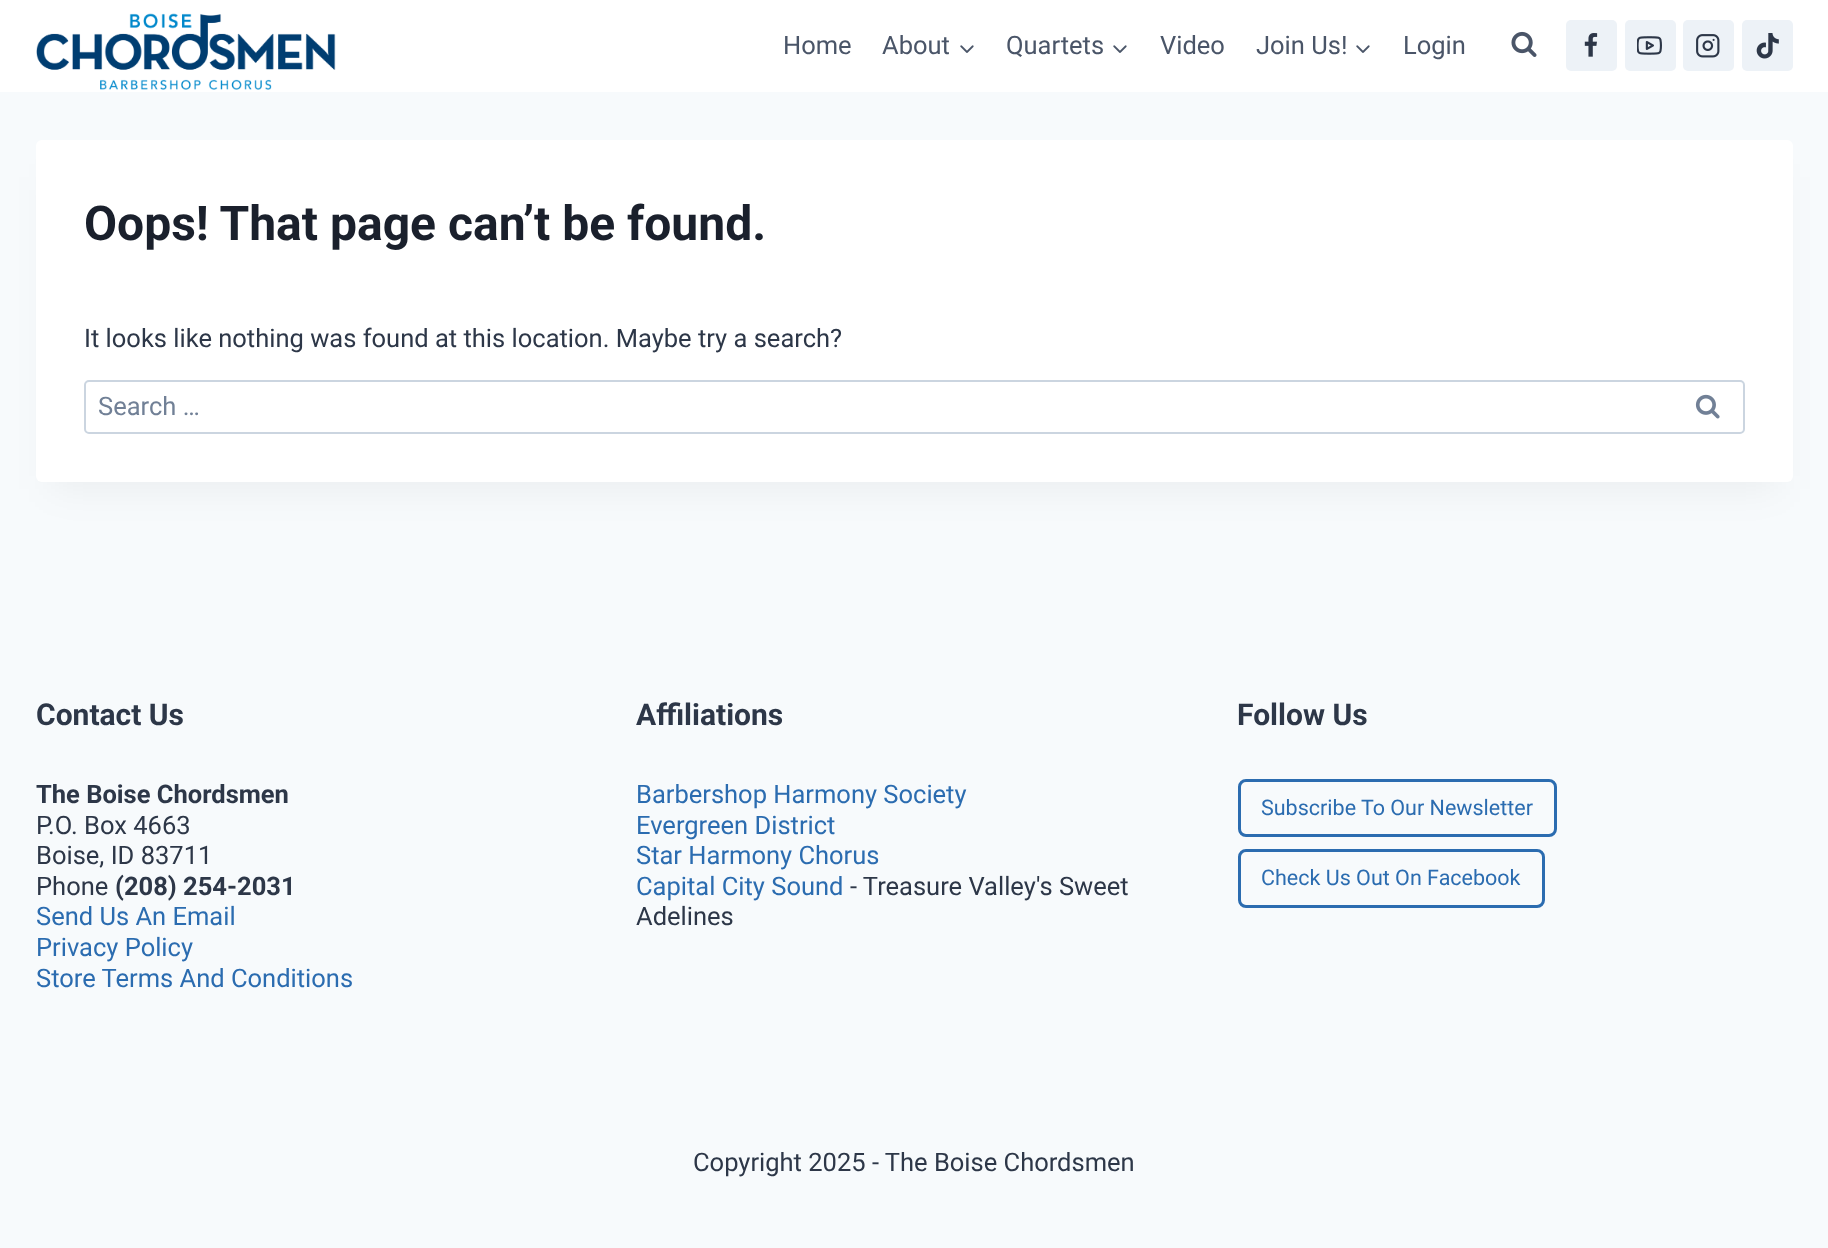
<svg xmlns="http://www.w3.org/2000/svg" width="1828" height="1248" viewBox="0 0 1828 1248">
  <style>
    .t1 { font: 25.5px Roboto; fill: #4a5568; }
    .t2 { font: bold 48px Roboto; fill: #1a202c; }
    .t3 { font: 25.5px Roboto; fill: #2d3748; }
    .t4 { font: 25.5px Roboto; fill: #718096; }
    .t5 { font: bold 30px Roboto; fill: #2d3748; }
    .t6 { font: bold 25.5px Roboto; fill: #2d3748; }
    .t7 { font: 25.5px Roboto; fill: #2b6cb0; }
    .t8 { font: 21.5px Roboto; fill: #2b6cb0; }
  </style>
  <rect width="100%" height="100%" fill="#f7fafc"/>
  <rect x="0" y="0" width="1828" height="92" fill="#fff"/>
  <image x="36" y="13" width="300" height="77" href="images/1.png"/>
  <text x="783" y="54" class="t1">Home</text>
  <text x="882" y="54" class="t1">About</text>
  <image x="960" y="45" width="14" height="8" href="images/2.png"/>
  <text x="1006" y="54" class="t1">Quartets</text>
  <image x="1113" y="45" width="14" height="8" href="images/2.png"/>
  <text x="1160" y="54" class="t1">Video</text>
  <text x="1256" y="54" class="t1">Join Us!</text>
  <image x="1356" y="45" width="14" height="8" href="images/2.png"/>
  <text x="1403" y="54" class="t1">Login</text>
  <image x="1511" y="31" width="26" height="26" href="images/3.png"/>
  <rect x="1566" y="20" width="51" height="51" rx="5" fill="#edf2f7"/>
  <image x="1584" y="33" width="14" height="24" href="images/4.png"/>
  <rect x="1625" y="20" width="51" height="51" rx="5" fill="#edf2f7"/>
  <image x="1637" y="36" width="25" height="19" href="images/5.png"/>
  <rect x="1683" y="20" width="51" height="51" rx="5" fill="#edf2f7"/>
  <image x="1696" y="34" width="24" height="24" href="images/6.png"/>
  <rect x="1742" y="20" width="51" height="51" rx="5" fill="#edf2f7"/>
  <image x="1756" y="33" width="23" height="26" href="images/7.png"/>
  <rect x="51" y="177" width="1727" height="312" fill="#0000000d" filter="blur(19px)"/>
  <rect x="36" y="140" width="1757" height="342" rx="6" fill="#fff"/>
  <text x="84" y="240" class="t2">Oops! That page can’t be found.</text>
  <text x="84" y="347" class="t3">It looks like nothing was found at this location. Maybe try a search?</text>
  <rect x="85" y="381" width="1659" height="52" rx="4" fill="none" stroke="#cbd5e0" stroke-width="2"/>
  <text x="98" y="415" class="t4">Search …</text>
  <image x="1695" y="394" width="25" height="25" href="images/8.png"/>
  <text x="36" y="725" class="t5">Contact Us</text>
  <text x="36" y="803" class="t6">The Boise Chordsmen</text>
  <text x="36" y="834" class="t3">P.O. Box 4663</text>
  <text x="36" y="864" class="t3">Boise, ID 83711</text>
  <text x="36" y="895" class="t3">Phone</text>
  <text x="115" y="895" class="t6">(208) 254-2031</text>
  <text x="36" y="925" class="t7">Send Us An Email</text>
  <text x="36" y="956" class="t7">Privacy Policy</text>
  <text x="36" y="987" class="t7">Store Terms And Conditions</text>
  <text x="636" y="725" class="t5">Affiliations</text>
  <text x="636" y="803" class="t7">Barbershop Harmony Society</text>
  <text x="636" y="834" class="t7">Evergreen District</text>
  <text x="636" y="864" class="t7">Star Harmony Chorus</text>
  <text x="636" y="895" class="t7">Capital City Sound</text>
  <text x="850" y="895" class="t3">- Treasure Valley's Sweet</text>
  <text x="636" y="925" class="t3">Adelines</text>
  <text x="1237" y="725" class="t5">Follow Us</text>
  <rect x="1239.5" y="780.5" width="316" height="55" rx="6.5" fill="none" stroke="#2b6cb0" stroke-width="3"/>
  <text x="1261" y="815" class="t8">Subscribe To Our Newsletter</text>
  <rect x="1239.5" y="850.5" width="304" height="56" rx="6.5" fill="none" stroke="#2b6cb0" stroke-width="3"/>
  <text x="1261" y="885" class="t8">Check Us Out On Facebook</text>
  <text x="693" y="1171" class="t3">Copyright 2025 - The Boise Chordsmen</text>
</svg>
